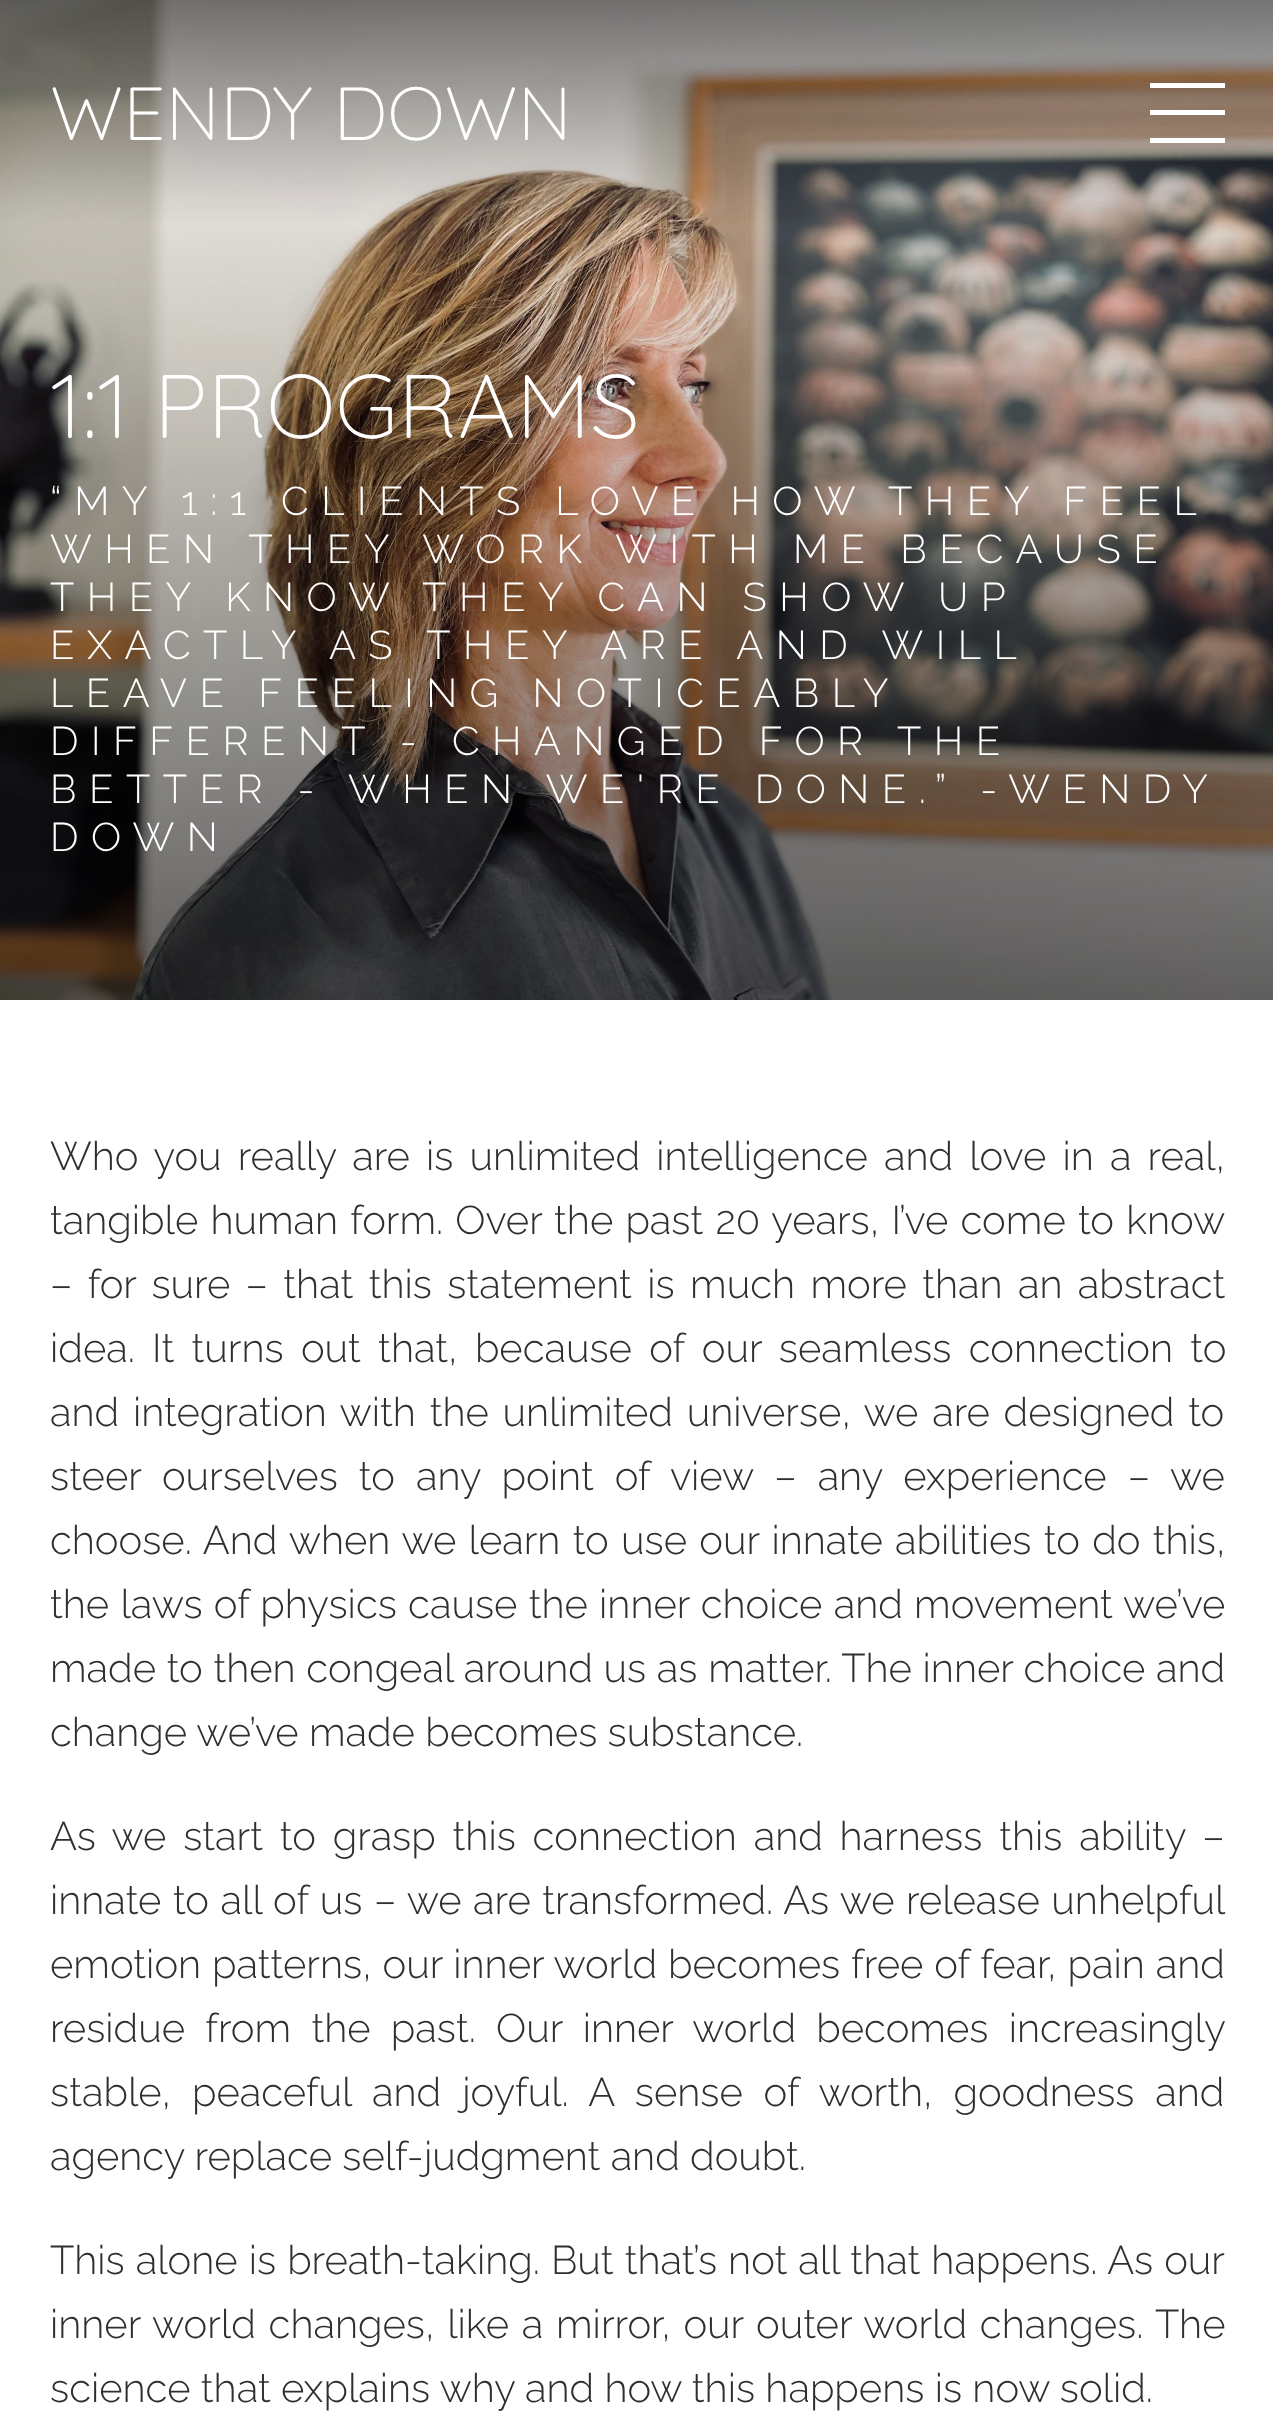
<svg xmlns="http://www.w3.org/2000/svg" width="1273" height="2431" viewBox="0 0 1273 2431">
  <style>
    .t1 { font: 300 75px Quicksand; fill: #fff; }
    .t2 { font: 300 90px Quicksand; fill: #fff; }
    .t3 { font: 300 40px Raleway; letter-spacing: 12.5px; fill: #fff; }
    .t4 { font: 300 40px Raleway; fill: #2f2f2f; }
  </style>
  <rect width="100%" height="100%" fill="#fff"/>
  <image x="0" y="0" width="1273" height="1000" href="images/1.png"/>
  <text x="50" y="140" class="t1">WENDY DOWN</text>
  <rect x="1150" y="83" width="75" height="5" fill="#fff"/>
  <rect x="1150" y="110" width="75" height="5" fill="#fff"/>
  <rect x="1150" y="138" width="75" height="5" fill="#fff"/>
  <text x="50" y="438" class="t2">1:1 PROGRAMS</text>
  <text x="50" y="515" word-spacing="-0.25" class="t3">“MY 1:1 CLIENTS LOVE HOW THEY FEEL</text>
  <text x="50" y="563" class="t3">WHEN THEY WORK WITH ME BECAUSE</text>
  <text x="50" y="611" word-spacing="-0.25" class="t3">THEY KNOW THEY CAN SHOW UP</text>
  <text x="50" y="659" word-spacing="-0.25" class="t3">EXACTLY AS THEY ARE AND WILL</text>
  <text x="50" y="707" word-spacing="-1" class="t3">LEAVE FEELING NOTICEABLY</text>
  <text x="50" y="755" class="t3">DIFFERENT - CHANGED FOR THE</text>
  <text x="50" y="803" word-spacing="-0.25" class="t3">BETTER - WHEN WE'RE DONE.” -WENDY</text>
  <text x="50" y="851" class="t3">DOWN</text>
  <text x="50" y="1170" word-spacing="5.9" class="t4">Who you really are is unlimited intelligence and love in a real,</text>
  <text x="50" y="1234" word-spacing="1.9" class="t4">tangible human form. Over the past 20 years, I’ve come to know</text>
  <text x="50" y="1298" word-spacing="5.1" class="t4">– for sure – that this statement is much more than an abstract</text>
  <text x="50" y="1362" word-spacing="7" class="t4">idea. It turns out that, because of our seamless connection to</text>
  <text x="50" y="1426" word-spacing="3.5" class="t4">and integration with the unlimited universe, we are designed to</text>
  <text x="50" y="1490" word-spacing="10.75" class="t4">steer ourselves to any point of view – any experience – we</text>
  <text x="50" y="1554" word-spacing="2" class="t4">choose. And when we learn to use our innate abilities to do this,</text>
  <text x="50" y="1618" word-spacing="1" class="t4">the laws of physics cause the inner choice and movement we’ve</text>
  <text x="50" y="1682" word-spacing="0.4" class="t4">made to then congeal around us as matter. The inner choice and</text>
  <text x="50" y="1746" class="t4">change we’ve made becomes substance.</text>
  <text x="50" y="1850" word-spacing="6.5" class="t4">As we start to grasp this connection and harness this ability –</text>
  <text x="50" y="1914" word-spacing="1.25" class="t4">innate to all of us – we are transformed. As we release unhelpful</text>
  <text x="50" y="1978" word-spacing="0.6" class="t4">emotion patterns, our inner world becomes free of fear, pain and</text>
  <text x="50" y="2042" word-spacing="10" class="t4">residue from the past. Our inner world becomes increasingly</text>
  <text x="50" y="2106" word-spacing="10.5" class="t4">stable, peaceful and joyful. A sense of worth, goodness and</text>
  <text x="50" y="2170" class="t4">agency replace self-judgment and doubt.</text>
  <text x="50" y="2274" word-spacing="0.75" class="t4">This alone is breath-taking. But that’s not all that happens. As our</text>
  <text x="50" y="2338" word-spacing="2.5" class="t4">inner world changes, like a mirror, our outer world changes. The</text>
  <text x="50" y="2402" class="t4">science that explains why and how this happens is now solid.</text>
</svg>
